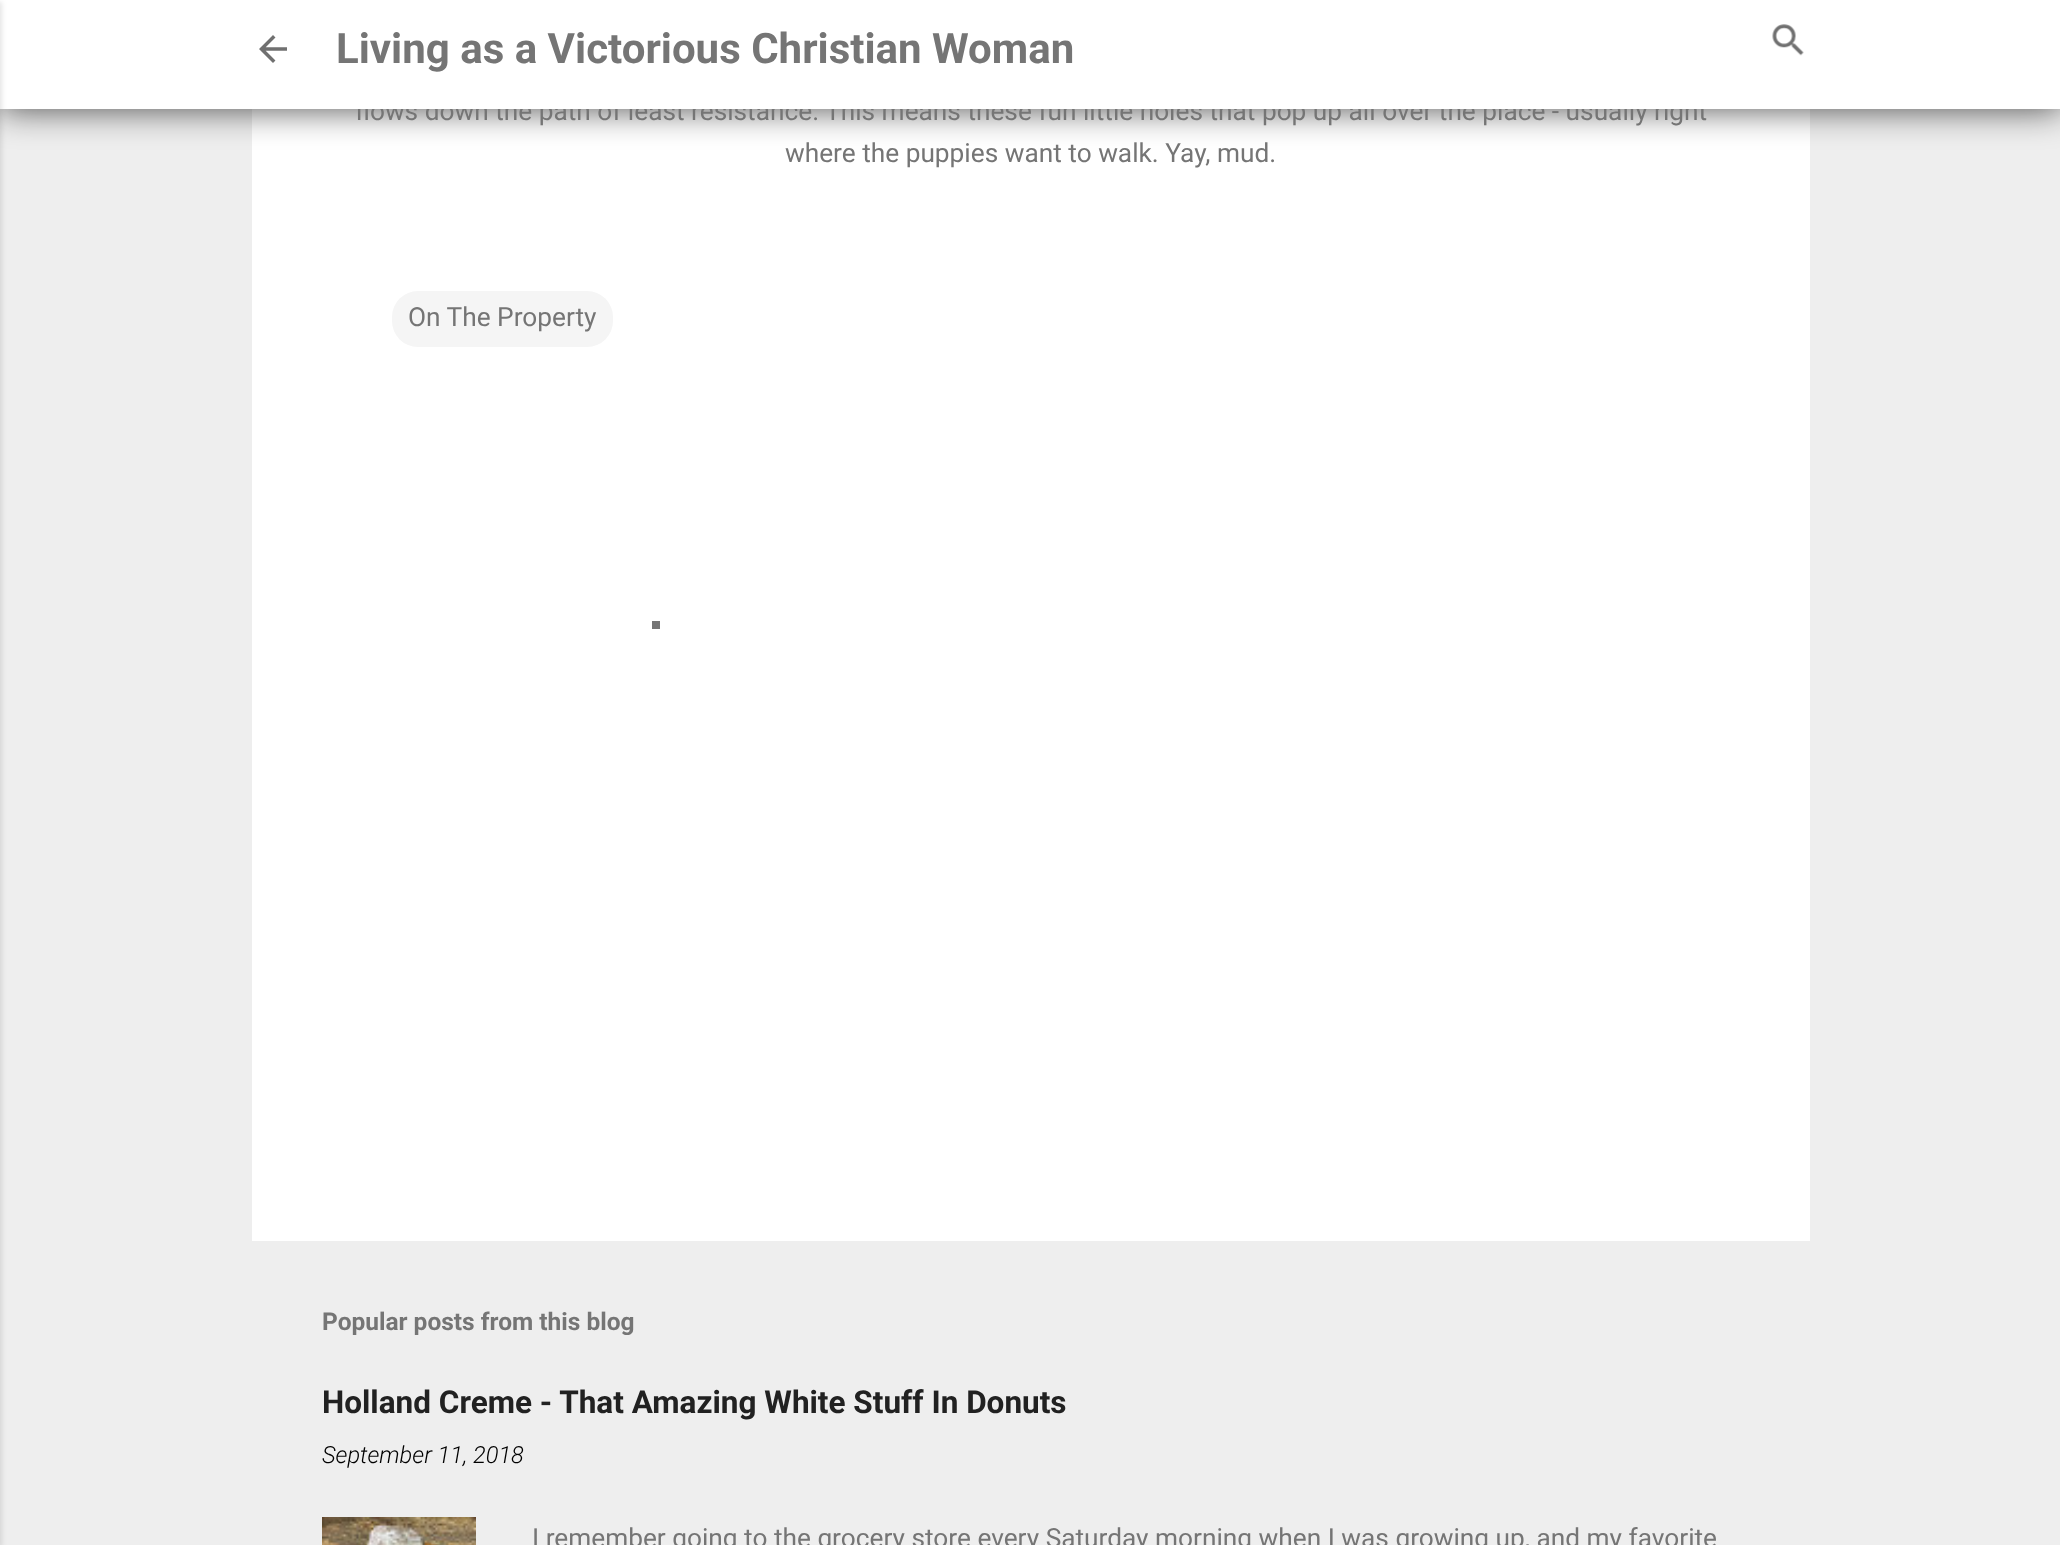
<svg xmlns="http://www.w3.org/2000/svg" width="2060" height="1545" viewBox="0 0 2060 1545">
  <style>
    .t1 { font: 26.25px Roboto; fill: #757575; }
    .t2 { font: bold 42px Roboto; fill: #757575; }
    .t3 { font: bold 24.5px Roboto; fill: #757575; }
    .t4 { font: bold 31.5px Roboto; fill: #212121; }
    .t5 { font: italic 300 23.6px Roboto; fill: #000; }
  </style>
  <rect width="100%" height="100%" fill="#eee"/>
  <rect x="252" y="109" width="1558" height="1132" fill="#fff"/>
  <rect x="0" y="0" width="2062" height="109" fill="#000000b3" filter="blur(17.5px)"/>
  <text x="355" y="120" class="t1">flows down the path of least resistance. This means these fun little holes that pop up all over the place - usually right</text>
  <rect x="0" y="0" width="2060" height="109" fill="#fff"/>
  <rect x="-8" y="2" width="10" height="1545" fill="#0000001a" filter="blur(2.5px)"/>
  <image x="259" y="35" width="28" height="28" href="images/1.png"/>
  <text x="336" y="63" class="t2">Living as a Victorious Christian Woman</text>
  <image x="1772" y="24" width="32" height="32" href="images/2.png"/>
  <text x="785" y="162" class="t1">where the puppies want to walk. Yay, mud.</text>
  <rect x="392" y="291" width="221" height="56" rx="26" fill="#f5f5f5"/>
  <text x="408" y="326" class="t1">On The Property</text>
  <text x="322" y="1330" class="t3">Popular posts from this blog</text>
  <text x="322" y="1413" class="t4">Holland Creme - That Amazing White Stuff In Donuts</text>
  <text x="322" y="1463" class="t5">September 11, 2018</text>
  <image x="322" y="1517" width="154" height="28" href="images/3.png"/>
  <text x="532" y="1547" class="t1">I remember going to the grocery store every Saturday morning when I was growing up, and my favorite</text>
  <rect x="652" y="621" width="8" height="8" fill="#757575"/>
</svg>
